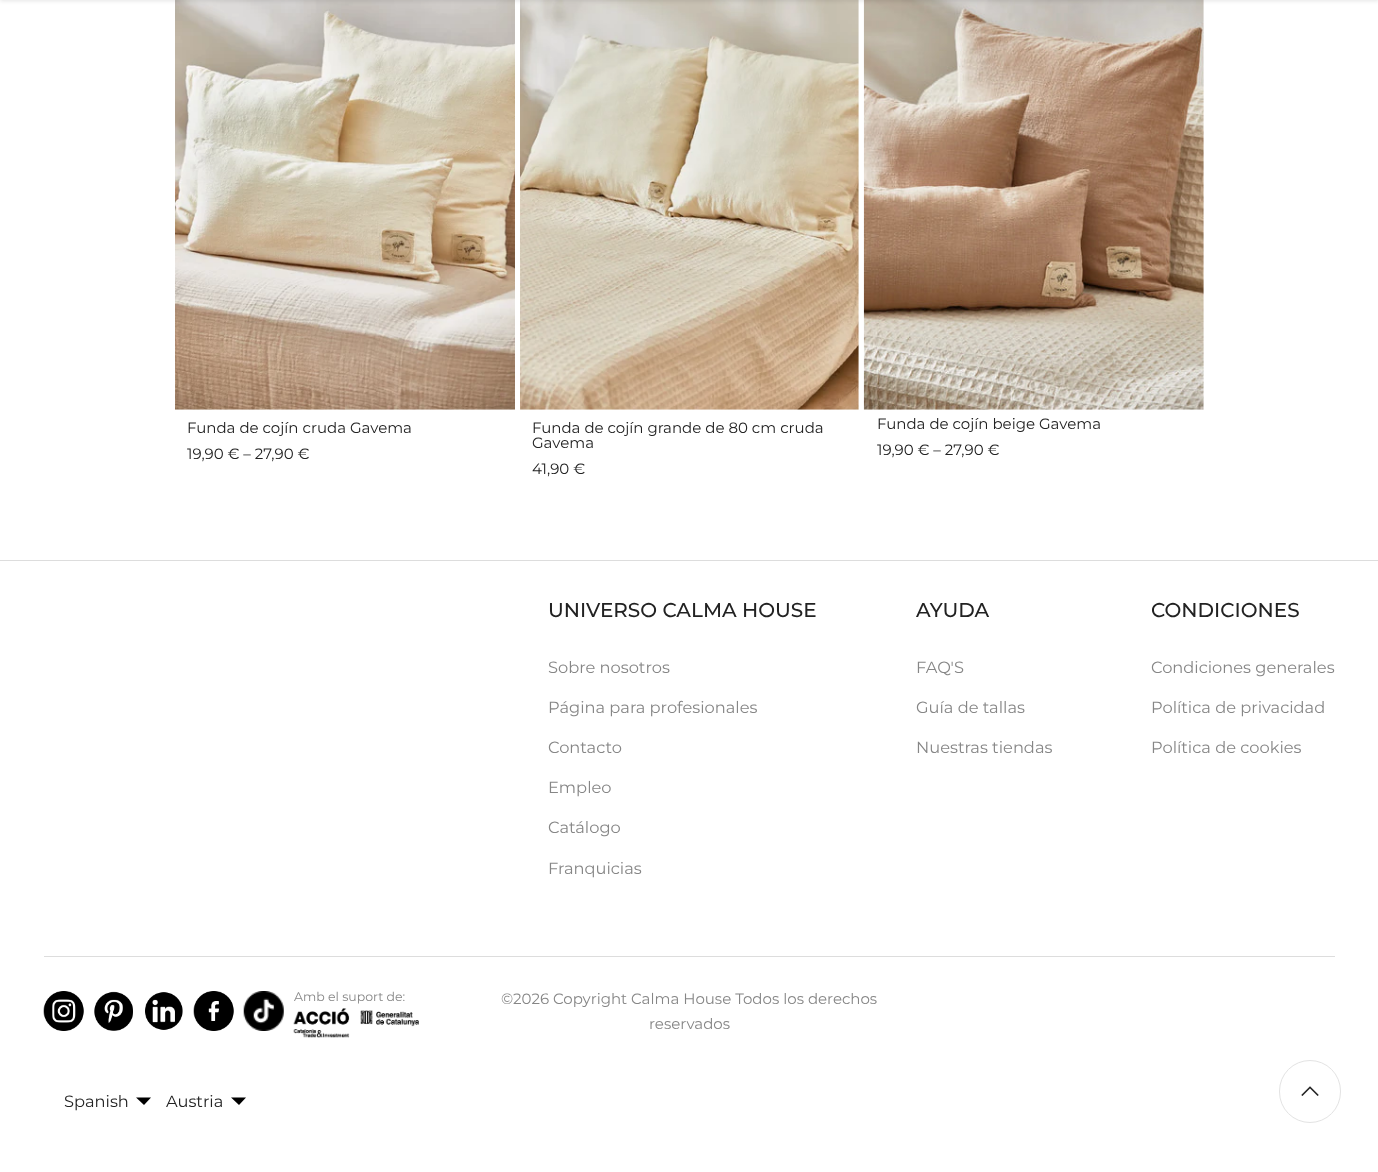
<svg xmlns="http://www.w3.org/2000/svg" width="1378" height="1172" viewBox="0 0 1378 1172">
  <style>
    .t1 { font: 15px Montserrat; fill: #222; }
    .t2 { font: 500 20px Montserrat; fill: #222; }
    .t3 { font: 16.25px Montserrat; fill: #868686; }
    .t4 { font: 12.5px Montserrat; fill: #868686; }
    .t5 { font: 15px Montserrat; fill: #868686; }
    .t6 { font: 16.25px Montserrat; fill: #222; }
  </style>
  <rect width="100%" height="100%" fill="#fff"/>
  <image x="175" y="0" width="340" height="410" href="images/1.png"/>
  <image x="520" y="0" width="339" height="410" href="images/2.png"/>
  <image x="863" y="0" width="341" height="410" href="images/3.png"/>
  <rect x="0" y="-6" width="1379" height="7" fill="#0000001a" filter="blur(2px)"/>
  <text x="187" y="433" class="t1">Funda de cojín cruda Gavema</text>
  <text x="187" y="459" class="t1">19,90 € – 27,90 €</text>
  <text x="532" y="433" class="t1">Funda de cojín grande de 80 cm cruda</text>
  <text x="532" y="448" class="t1">Gavema</text>
  <text x="532" y="474" class="t1">41,90 €</text>
  <text x="877" y="429" class="t1">Funda de cojín beige Gavema</text>
  <text x="877" y="455" class="t1">19,90 € – 27,90 €</text>
  <rect x="0" y="560" width="1378" height="1" fill="#ddd"/>
  <text x="548" y="617" class="t2">UNIVERSO CALMA HOUSE</text>
  <text x="548" y="673" class="t3">Sobre nosotros</text>
  <text x="548" y="713" class="t3">Página para profesionales</text>
  <text x="548" y="753" class="t3">Contacto</text>
  <text x="548" y="793" class="t3">Empleo</text>
  <text x="548" y="833" class="t3">Catálogo</text>
  <text x="548" y="874" class="t3">Franquicias</text>
  <text x="916" y="617" class="t2">AYUDA</text>
  <text x="916" y="673" class="t3">FAQ'S</text>
  <text x="916" y="713" class="t3">Guía de tallas</text>
  <text x="916" y="753" class="t3">Nuestras tiendas</text>
  <text x="1151" y="617" class="t2">CONDICIONES</text>
  <text x="1151" y="673" class="t3">Condiciones generales</text>
  <text x="1151" y="713" class="t3">Política de privacidad</text>
  <text x="1151" y="753" class="t3">Política de cookies</text>
  <rect x="44" y="956" width="1291" height="1" fill="#ddd"/>
  <image x="43" y="991" width="41" height="40" href="images/4.png"/>
  <image x="94" y="991" width="39" height="40" href="images/5.png"/>
  <image x="145" y="992" width="38" height="38" href="images/6.png"/>
  <image x="193" y="991" width="41" height="40" href="images/7.png"/>
  <image x="243" y="991" width="41" height="40" href="images/8.png"/>
  <text x="294" y="1001" class="t4">Amb el suport de:</text>
  <image x="293" y="1008" width="126" height="30" href="images/9.png"/>
  <text x="501" y="1004" class="t5">©2026 Copyright Calma House Todos los derechos</text>
  <text x="649" y="1029" class="t5">reservados</text>
  <text x="64" y="1107" class="t6">Spanish</text>
  <path d="M136 1097.5H151L144 1105Z" fill="#000"/>
  <text x="166" y="1107" class="t6">Austria</text>
  <path d="M231 1097.5H246L239 1105Z" fill="#000"/>
  <rect x="1279.5" y="1060.5" width="61" height="62" rx="30.5" fill="none" stroke="#e3e3e3"/>
  <image x="1301" y="1086" width="18" height="10" href="images/10.png"/>
</svg>
